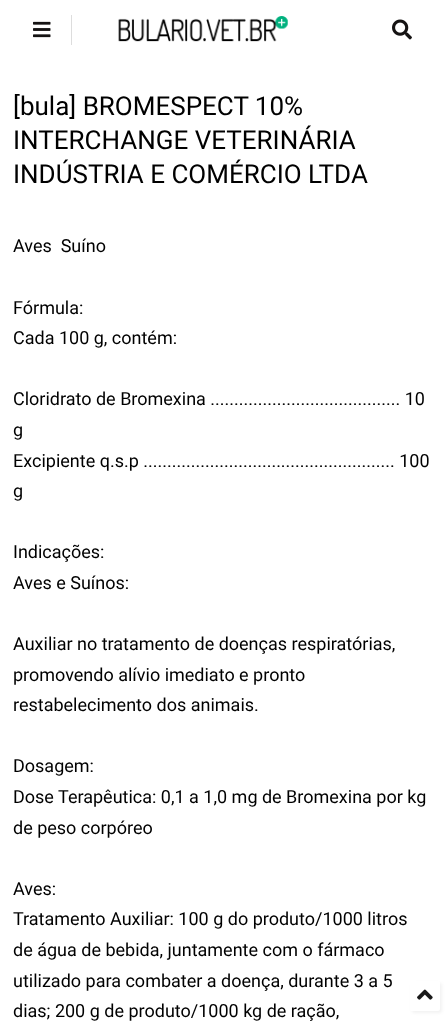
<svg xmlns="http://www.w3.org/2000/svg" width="445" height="1021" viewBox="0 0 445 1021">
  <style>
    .t1 { font: 26px Roboto; fill: #000; }
    .t2 { font: 18px Roboto; fill: #000; }
  </style>
  <rect width="100%" height="100%" fill="#fff"/>
  <image x="33" y="21" width="18" height="17" href="images/1.png"/>
  <rect x="71" y="15" width="1" height="30" fill="#ddd"/>
  <image x="118" y="16" width="170" height="26" href="images/2.png"/>
  <image x="392" y="19" width="20" height="21" href="images/3.png"/>
  <text x="13" y="115" class="t1">[bula] BROMESPECT 10%</text>
  <text x="13" y="149" class="t1">INTERCHANGE VETERINÁRIA</text>
  <text x="13" y="183" class="t1">INDÚSTRIA E COMÉRCIO LTDA</text>
  <text x="13" y="252" class="t2" xml:space="preserve">Aves  Suíno</text>
  <text x="13" y="314" class="t2">Fórmula:</text>
  <text x="13" y="344" class="t2">Cada 100 g, contém:</text>
  <text x="13" y="405" class="t2">Cloridrato de Bromexina ........................................ 10</text>
  <text x="13" y="436" class="t2">g</text>
  <text x="13" y="467" class="t2">Excipiente q.s.p ..................................................... 100</text>
  <text x="13" y="497" class="t2">g</text>
  <text x="13" y="558" class="t2">Indicações:</text>
  <text x="13" y="589" class="t2">Aves e Suínos:</text>
  <text x="13" y="650" class="t2">Auxiliar no tratamento de doenças respiratórias,</text>
  <text x="13" y="681" class="t2">promovendo alívio imediato e pronto</text>
  <text x="13" y="711" class="t2">restabelecimento dos animais.</text>
  <text x="13" y="772" class="t2">Dosagem:</text>
  <text x="13" y="803" class="t2">Dose Terapêutica: 0,1 a 1,0 mg de Bromexina por kg</text>
  <text x="13" y="834" class="t2">de peso corpóreo</text>
  <text x="13" y="895" class="t2">Aves:</text>
  <text x="13" y="925" class="t2">Tratamento Auxiliar: 100 g do produto/1000 litros</text>
  <text x="13" y="956" class="t2">de água de bebida, juntamente com o fármaco</text>
  <text x="13" y="987" class="t2">utilizado para combater a doença, durante 3 a 5</text>
  <text x="13" y="1017" class="t2">dias; 200 g de produto/1000 kg de ração,</text>
  <rect x="412" y="983" width="30" height="30" rx="2" fill="#0000000d" filter="blur(1.5px)"/>
  <rect x="410" y="981" width="30" height="30" rx="2" fill="#fff"/>
  <image x="417" y="989" width="16" height="11" href="images/4.png"/>
</svg>
